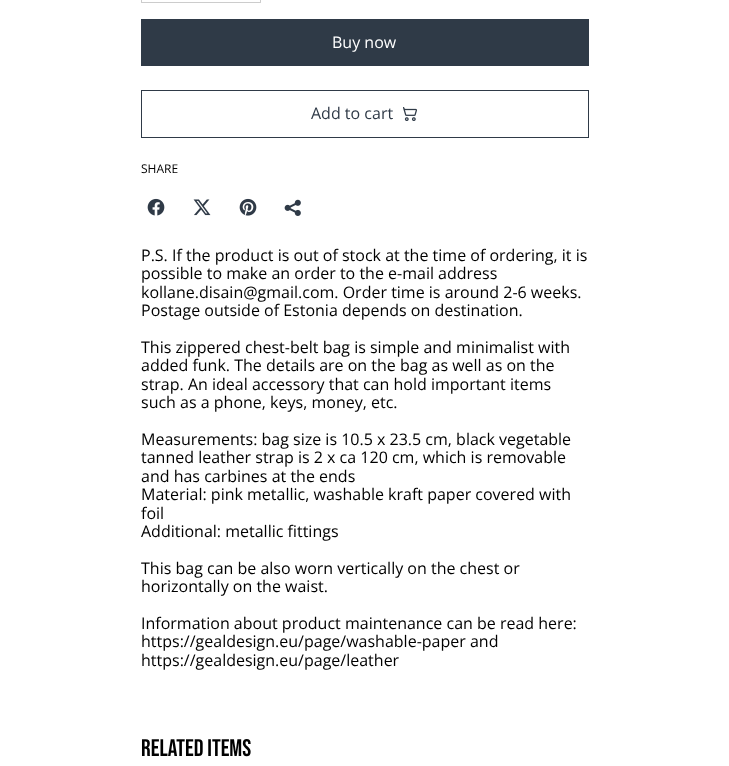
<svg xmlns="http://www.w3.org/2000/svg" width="729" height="766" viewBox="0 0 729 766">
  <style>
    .t1 { font: 16px Open Sans; fill: #fff; }
    .t2 { font: 16px Open Sans; fill: #2f3a47; }
    .t3 { font: 12px Open Sans; fill: #000; }
    .t4 { font: 16px Open Sans; fill: #000; }
    .t5 { font: 24px Bebas Neue; fill: #000; }
  </style>
  <rect width="100%" height="100%" fill="#fff"/>
  <path d="M182 3H141L142 2H182Z" fill="#ccc"/>
  <path d="M141 3V-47L142-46V2Z" fill="#00000033"/>
  <rect x="182" y="2" width="38" height="1" fill="#ccc"/>
  <path d="M261-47V3L260 2V-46Z" fill="#ccc"/>
  <path d="M261 3H220V2H260Z" fill="#00000033"/>
  <rect x="141" y="19" width="448" height="47" fill="#2f3a47"/>
  <text x="332" y="48" class="t1">Buy now</text>
  <rect x="141.5" y="90.5" width="447" height="47" fill="none" stroke="#2f3a47"/>
  <text x="311" y="119" class="t2">Add to cart</text>
  <image x="403" y="107" width="14" height="14" href="images/1.png"/>
  <text x="141" y="173" class="t3">SHARE</text>
  <image x="147" y="198" width="18" height="18" href="images/2.png"/>
  <image x="193" y="199" width="18" height="17" href="images/3.png"/>
  <image x="239" y="198" width="18" height="18" href="images/4.png"/>
  <image x="284" y="199" width="17" height="17" href="images/5.png"/>
  <text x="141" y="261" class="t4">P.S. If the product is out of stock at the time of ordering, it is</text>
  <text x="141" y="279" class="t4">possible to make an order to the e-mail address</text>
  <text x="141" y="298" class="t4">kollane.disain@gmail.com. Order time is around 2-6 weeks.</text>
  <text x="141" y="316" class="t4">Postage outside of Estonia depends on destination.</text>
  <text x="141" y="353" class="t4">This zippered chest-belt bag is simple and minimalist with</text>
  <text x="141" y="371" class="t4">added funk. The details are on the bag as well as on the</text>
  <text x="141" y="390" class="t4">strap. An ideal accessory that can hold important items</text>
  <text x="141" y="408" class="t4">such as a phone, keys, money, etc.</text>
  <text x="141" y="445" class="t4">Measurements: bag size is 10.5 x 23.5 cm, black vegetable</text>
  <text x="141" y="463" class="t4">tanned leather strap is 2 x ca 120 cm, which is removable</text>
  <text x="141" y="482" class="t4">and has carbines at the ends</text>
  <text x="141" y="500" class="t4">Material: pink metallic, washable kraft paper covered with</text>
  <text x="141" y="519" class="t4">foil</text>
  <text x="141" y="537" class="t4">Additional: metallic fittings</text>
  <text x="141" y="574" class="t4">This bag can be also worn vertically on the chest or</text>
  <text x="141" y="592" class="t4">horizontally on the waist.</text>
  <text x="141" y="629" class="t4">Information about product maintenance can be read here:</text>
  <text x="141" y="647" class="t4">https://gealdesign.eu/page/washable-paper and</text>
  <text x="141" y="666" class="t4">https://gealdesign.eu/page/leather</text>
  <text x="141" y="756" class="t5">Related items</text>
</svg>
